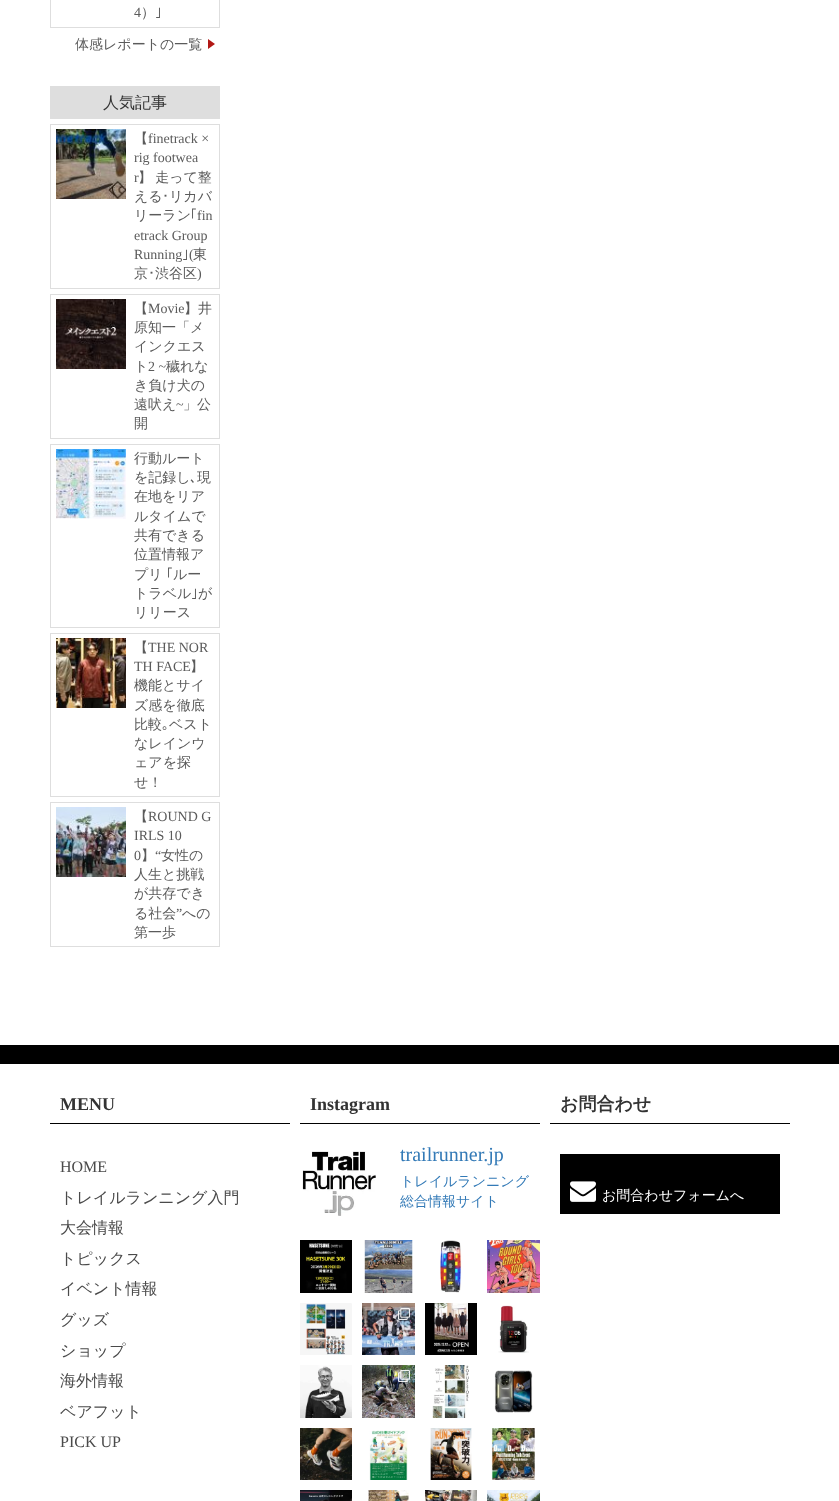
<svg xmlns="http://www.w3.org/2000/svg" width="839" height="1501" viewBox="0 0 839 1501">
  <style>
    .t1 { font: 14px Liberation Serif; fill: #5b5b5b; }
    .t2 { font: 500 14px WenQuanYi Zen Hei; fill: #5b5b5b; }
    .t3 { font: 14px IPAPGothic; fill: #5b5b5b; }
    .t4 { font: 500 16px WenQuanYi Zen Hei; fill: #333; }
    .t5 { font: bold 18px Liberation Serif; fill: #333; }
    .t6 { font: 16px Liberation Serif; fill: #4a4a4a; }
    .t7 { font: 500 16px WenQuanYi Zen Hei; fill: #4a4a4a; }
    .t8 { font: 20px Liberation Serif; fill: #337ab7; }
    .t9 { font: 500 14px WenQuanYi Zen Hei; fill: #337ab7; }
    .t10 { font: bold 18px WenQuanYi Zen Hei; fill: #333; }
    .t11 { font: 500 14px WenQuanYi Zen Hei; fill: #fff; }
  </style>
  <rect width="100%" height="100%" fill="#fff"/>
  <rect x="50.5" y="-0.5" width="169" height="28" fill="none" stroke="#dedede"/>
  <text x="134" y="17" class="t1">4</text>
  <text x="141" y="17" class="t2">）</text>
  <text x="155" y="17" class="t3">｣</text>
  <text x="75" y="49" class="t2">体感レポートの一覧</text>
  <path d="M208 49V39L215 44Z" fill="#b21815"/>
  <rect x="50" y="86" width="170" height="33" fill="#dedede"/>
  <text x="103" y="108" class="t4">人気記事</text>
  <rect x="50.5" y="124.5" width="169" height="164" fill="none" stroke="#dedede"/>
  <image x="56" y="129" width="70" height="70" href="images/1.png"/>
  <text x="134" y="143" class="t2">【</text>
  <text x="148" y="143" class="t1">finetrack ×</text>
  <text x="134" y="162" class="t1">rig footwea</text>
  <text x="134" y="182" class="t1">r</text>
  <text x="138" y="182" word-spacing="-1" class="t2">】 走って整</text>
  <text x="134" y="201" class="t2">える</text>
  <text x="162" y="201" class="t3">･</text>
  <text x="169" y="201" class="t2">リカバ</text>
  <text x="134" y="220" class="t2">リーラン</text>
  <text x="190" y="220" class="t3">｢</text>
  <text x="197" y="220" class="t1">fin</text>
  <text x="134" y="240" class="t1">etrack Group</text>
  <text x="134" y="259" class="t1">Running</text>
  <text x="182" y="259" class="t3">｣</text>
  <text x="189" y="259" class="t1">(</text>
  <text x="193" y="259" class="t2">東</text>
  <text x="134" y="278" class="t2">京</text>
  <text x="148" y="278" class="t3">･</text>
  <text x="155" y="278" class="t2">渋谷区</text>
  <text x="197" y="278" class="t1">)</text>
  <rect x="50.5" y="294.5" width="169" height="144" fill="none" stroke="#dedede"/>
  <image x="56" y="299" width="70" height="70" href="images/2.png"/>
  <text x="134" y="313" class="t2">【</text>
  <text x="148" y="313" class="t1">Movie</text>
  <text x="184" y="313" class="t2">】井</text>
  <text x="134" y="332" class="t2">原知一「メ</text>
  <text x="134" y="351" class="t2">インクエス</text>
  <text x="134" y="371" class="t2">ト</text>
  <text x="148" y="371" class="t1">2 ~</text>
  <text x="166" y="371" class="t2">穢れな</text>
  <text x="134" y="390" class="t2">き負け犬の</text>
  <text x="134" y="409" class="t2">遠吠え</text>
  <text x="176" y="409" class="t1">~</text>
  <text x="183" y="409" class="t2">」公</text>
  <text x="134" y="428" class="t2">開</text>
  <rect x="50.5" y="444.5" width="169" height="183" fill="none" stroke="#dedede"/>
  <image x="56" y="449" width="70" height="70" href="images/3.png"/>
  <text x="134" y="463" class="t2">行動ルート</text>
  <text x="134" y="482" class="t2">を記録し</text>
  <text x="190" y="482" class="t3">､</text>
  <text x="197" y="482" class="t2">現</text>
  <text x="134" y="501" class="t2">在地をリア</text>
  <text x="134" y="521" class="t2">ルタイムで</text>
  <text x="134" y="540" class="t2">共有できる</text>
  <text x="134" y="559" class="t2">位置情報ア</text>
  <text x="134" y="579" class="t2">プリ</text>
  <text x="166" y="579" class="t3">｢</text>
  <text x="173" y="579" class="t2">ルー</text>
  <text x="134" y="598" class="t2">トラベル</text>
  <text x="191" y="598" class="t3">｣</text>
  <text x="198" y="598" class="t2">が</text>
  <text x="134" y="617" class="t2">リリース</text>
  <rect x="50.5" y="633.5" width="169" height="163" fill="none" stroke="#dedede"/>
  <image x="56" y="638" width="70" height="70" href="images/4.png"/>
  <text x="134" y="652" class="t2">【</text>
  <text x="148" y="652" class="t1">THE NOR</text>
  <text x="134" y="671" class="t1">TH FACE</text>
  <text x="190" y="671" class="t2">】</text>
  <text x="134" y="690" class="t2">機能とサイ</text>
  <text x="134" y="710" class="t2">ズ感を徹底</text>
  <text x="134" y="729" class="t2">比較</text>
  <text x="162" y="729" class="t3">｡</text>
  <text x="169" y="729" class="t2">ベスト</text>
  <text x="134" y="748" class="t2">なレインウ</text>
  <text x="134" y="767" class="t2">ェアを探</text>
  <text x="134" y="787" class="t2">せ！</text>
  <rect x="50.5" y="802.5" width="169" height="144" fill="none" stroke="#dedede"/>
  <image x="56" y="807" width="70" height="70" href="images/5.png"/>
  <text x="134" y="821" class="t2">【</text>
  <text x="148" y="821" class="t1">ROUND G</text>
  <text x="134" y="840" class="t1">IRLS 10</text>
  <text x="134" y="860" class="t1">0</text>
  <text x="141" y="860" class="t2">】</text>
  <text x="155" y="860" class="t1">“</text>
  <text x="161" y="860" class="t2">女性の</text>
  <text x="134" y="879" class="t2">人生と挑戦</text>
  <text x="134" y="898" class="t2">が共存でき</text>
  <text x="134" y="918" class="t2">る社会</text>
  <text x="176" y="918" class="t1">”</text>
  <text x="182" y="918" class="t2">への</text>
  <text x="134" y="937" class="t2">第一歩</text>
  <rect x="0" y="1045" width="839" height="19" fill="#000"/>
  <rect x="50" y="1123" width="240" height="1" fill="#000"/>
  <text x="60" y="1110" class="t5">MENU</text>
  <text x="60" y="1172" class="t6">HOME</text>
  <text x="60" y="1203" class="t7">トレイルランニング入門</text>
  <text x="60" y="1233" class="t7">大会情報</text>
  <text x="60" y="1264" class="t7">トピックス</text>
  <text x="60" y="1294" class="t7">イベント情報</text>
  <text x="60" y="1325" class="t7">グッズ</text>
  <text x="60" y="1356" class="t7">ショップ</text>
  <text x="60" y="1386" class="t7">海外情報</text>
  <text x="60" y="1417" class="t7">ベアフット</text>
  <text x="60" y="1447" class="t6">PICK UP</text>
  <rect x="300" y="1123" width="240" height="1" fill="#000"/>
  <text x="310" y="1110" class="t5">Instagram</text>
  <image x="302" y="1151" width="74" height="65" href="images/6.png"/>
  <text x="400" y="1161" class="t8">trailrunner.jp</text>
  <text x="400" y="1186" class="t9">トレイルランニング</text>
  <text x="400" y="1206" class="t9">総合情報サイト</text>
  <image x="300" y="1240" width="52" height="53" href="images/7.png"/>
  <image x="364" y="1240" width="49" height="53" href="images/8.png"/>
  <image x="440" y="1240" width="22" height="53" href="images/9.png"/>
  <image x="487" y="1240" width="53" height="53" href="images/10.png"/>
  <image x="300" y="1303" width="52" height="52" href="images/11.png"/>
  <image x="362" y="1303" width="53" height="52" href="images/12.png"/>
  <image x="398" y="1308" width="12" height="12" href="images/13.png"/>
  <image x="425" y="1303" width="52" height="52" href="images/14.png"/>
  <image x="498" y="1305" width="31" height="48" href="images/15.png"/>
  <image x="300" y="1365" width="52" height="53" href="images/16.png"/>
  <image x="362" y="1365" width="53" height="53" href="images/17.png"/>
  <image x="398" y="1370" width="12" height="12" href="images/18.png"/>
  <image x="432" y="1365" width="37" height="53" href="images/19.png"/>
  <image x="494" y="1370" width="39" height="43" href="images/20.png"/>
  <image x="300" y="1428" width="52" height="52" href="images/21.png"/>
  <image x="369" y="1430" width="39" height="50" href="images/22.png"/>
  <image x="430" y="1428" width="42" height="52" href="images/23.png"/>
  <image x="491" y="1428" width="44" height="52" href="images/24.png"/>
  <image x="300" y="1490" width="52" height="11" href="images/25.png"/>
  <image x="368" y="1490" width="42" height="11" href="images/26.png"/>
  <image x="425" y="1490" width="52" height="11" href="images/27.png"/>
  <image x="487" y="1490" width="53" height="11" href="images/28.png"/>
  <rect x="550" y="1123" width="240" height="1" fill="#000"/>
  <text x="560" y="1110" class="t10">お問合わせ</text>
  <rect x="560" y="1154" width="220" height="60" fill="#000"/>
  <image x="570" y="1181" width="26" height="21" href="images/29.png"/>
  <text x="602" y="1200" class="t11">お問合わせフォームへ</text>
</svg>
